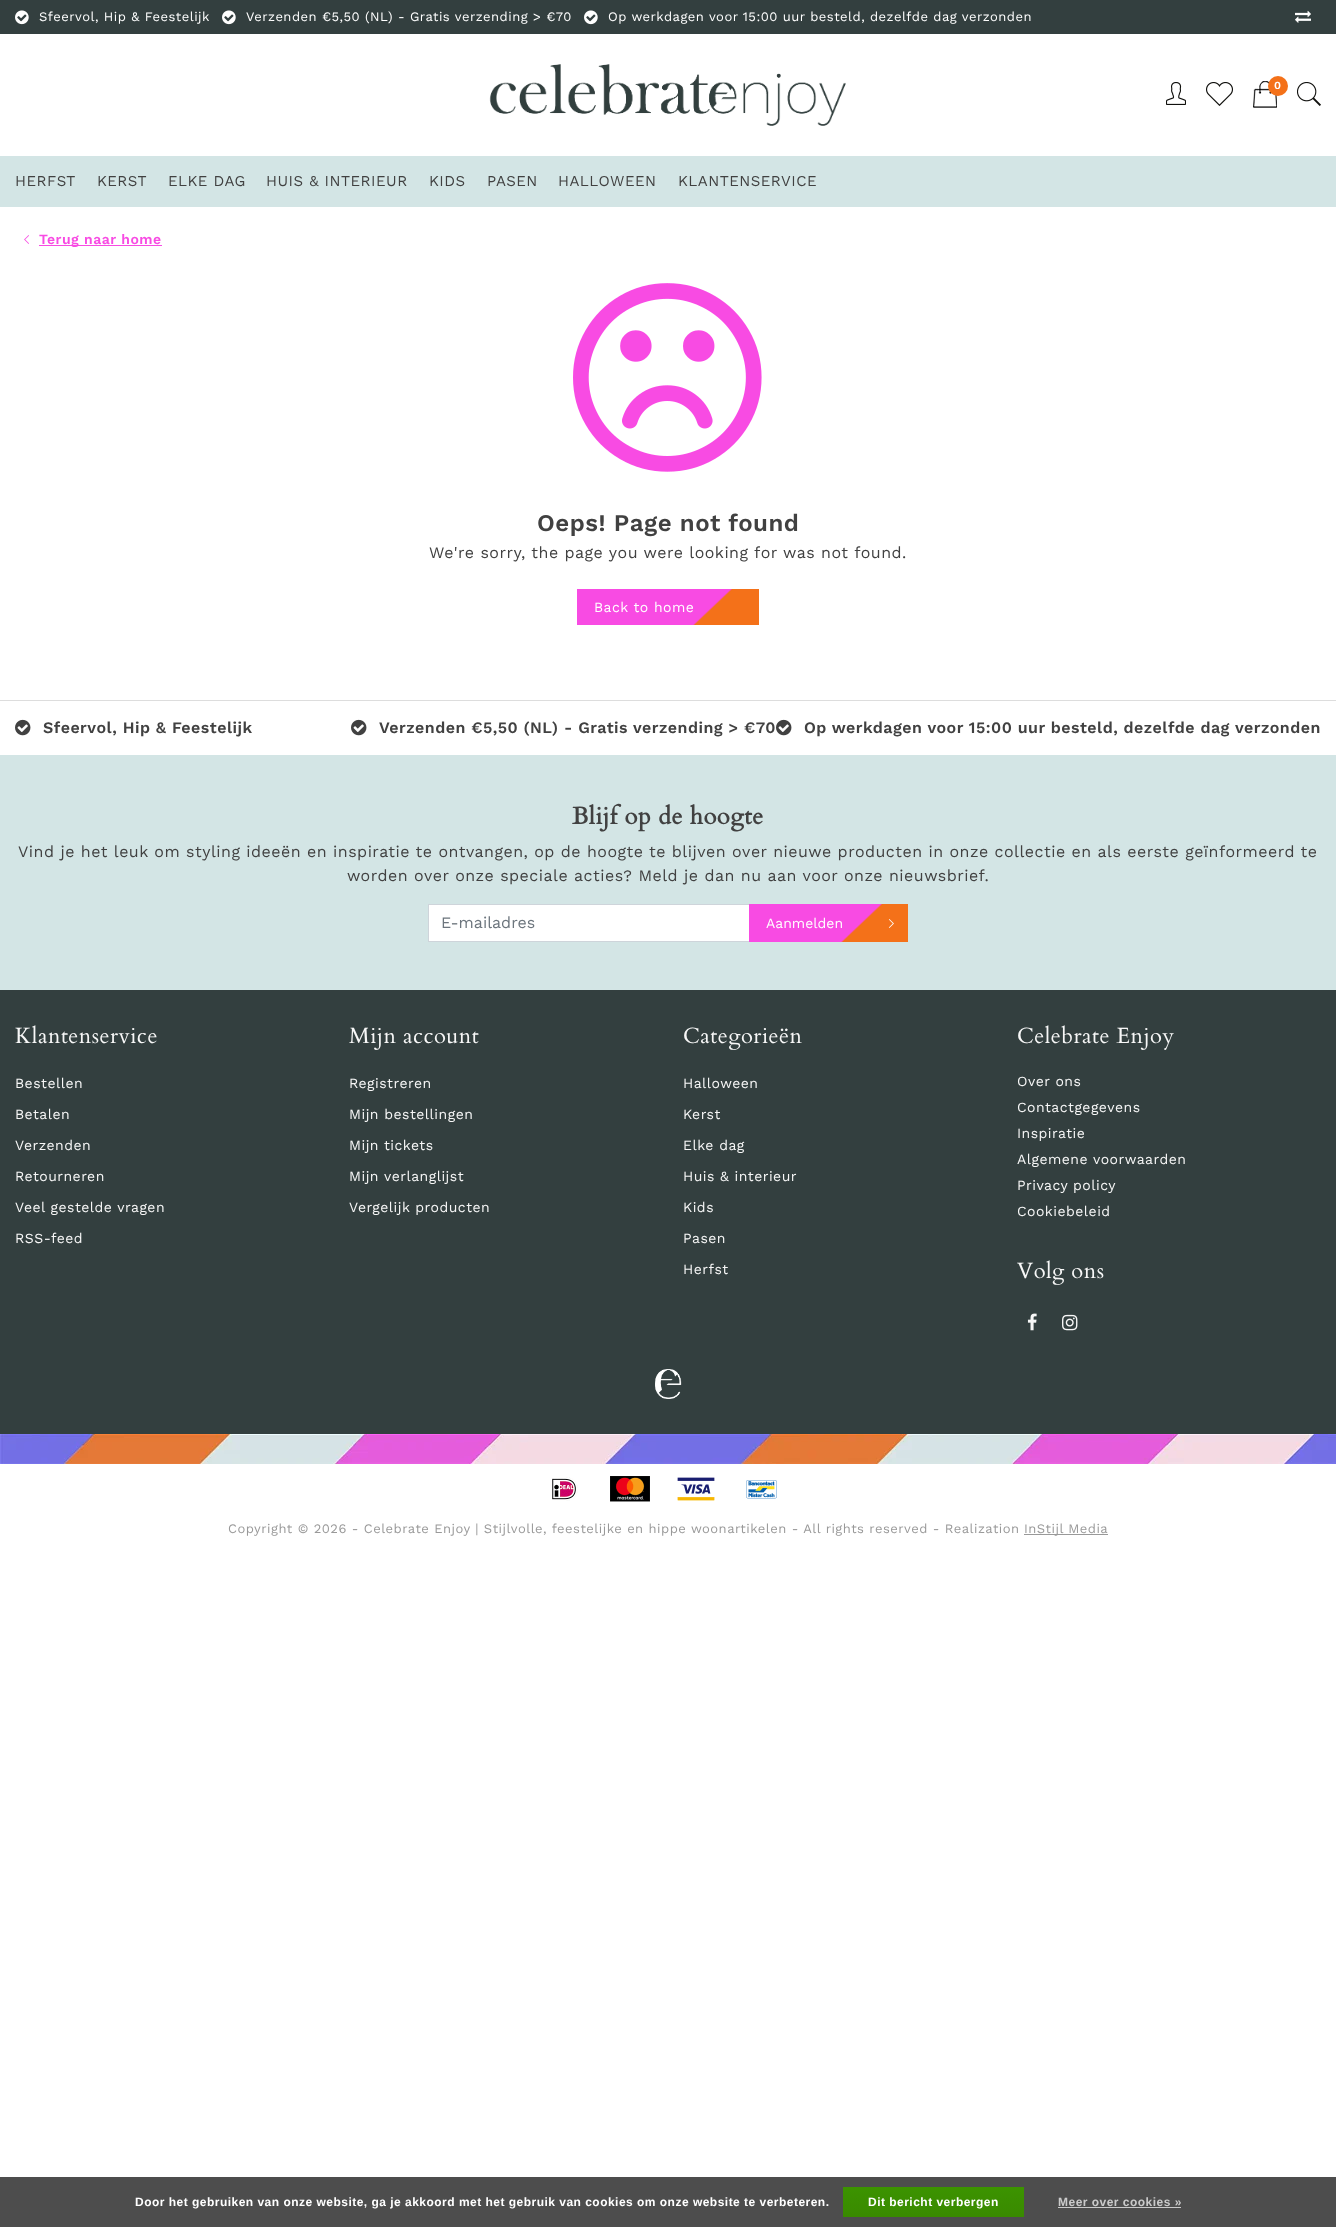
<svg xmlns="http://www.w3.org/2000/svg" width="1336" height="2227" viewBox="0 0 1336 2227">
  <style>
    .t1 { font: 13px Work Sans; letter-spacing: 0.48px; fill: #fff; }
    .t2 { font: 600 11px Work Sans; letter-spacing: 0.48px; fill: #fff; }
    .t3 { font: 15px Work Sans; letter-spacing: 0.48px; fill: #414141; }
    .t4 { font: 600 14px Work Sans; letter-spacing: 0.48px; fill: #f84be3; }
    .t5 { font: 600 24px Work Sans; letter-spacing: 0.48px; fill: #414141; }
    .t6 { font: 16px Work Sans; letter-spacing: 0.48px; fill: #414141; }
    .t7 { font: 14px Work Sans; letter-spacing: 0.48px; fill: #fff; }
    .t8 { font: 600 16px Work Sans; letter-spacing: 0.48px; fill: #414141; }
    .t9 { font: bold 24px Cardo; letter-spacing: 0.48px; fill: #414141; }
    .t10 { font: 16px Work Sans; fill: #6c757d; }
    .t11 { font: 14px Work Sans; fill: #fff; }
    .t12 { font: 22px Cardo; letter-spacing: 0.48px; fill: #f7f7f7; }
    .t13 { font: 14px Work Sans; letter-spacing: 0.48px; fill: #f7f7f7; }
    .t14 { font: 13px Work Sans; letter-spacing: 0.48px; fill: #999; }
    .t15 { font: bold 12px Liberation Sans; letter-spacing: 0.48px; fill: #fff; }
    .t16 { font: bold 12px Liberation Sans; letter-spacing: 0.48px; fill: #cacaca; }
  </style>
  <defs>
    <linearGradient id="g1" gradientUnits="userSpaceOnUse" x1="934" y1="2187" x2="934" y2="2217"><stop offset="0" stop-color="#3c9300"/><stop offset="1" stop-color="#398a00"/></linearGradient>
  </defs>
  <rect width="100%" height="100%" fill="#fff"/>
  <rect x="0" y="0" width="1336" height="34" fill="#333f3f"/>
  <image x="15" y="10" width="14" height="15" href="images/1.png"/>
  <text x="39" y="21" class="t1">Sfeervol, Hip &amp; Feestelijk</text>
  <image x="222" y="10" width="14" height="15" href="images/1.png"/>
  <text x="246" y="21" class="t1">Verzenden €5,50 (NL) - Gratis verzending &gt; €70</text>
  <image x="584" y="10" width="14" height="15" href="images/1.png"/>
  <text x="608" y="21" class="t1">Op werkdagen voor 15:00 uur besteld, dezelfde dag verzonden</text>
  <image x="1295" y="10" width="16" height="13" href="images/2.png"/>
  <image x="489" y="64" width="357" height="62" href="images/3.png"/>
  <image x="1166" y="82" width="20" height="23" href="images/4.png"/>
  <image x="1206" y="82" width="27" height="24" href="images/5.png"/>
  <image x="1253" y="81" width="24" height="27" href="images/6.png"/>
  <circle cx="1278" cy="86" r="10" fill="#f47119"/>
  <text x="1274" y="89" class="t2">0</text>
  <image x="1297" y="82" width="24" height="24" href="images/7.png"/>
  <rect x="0" y="156" width="1336" height="51" fill="#d3e5e5"/>
  <text x="15" y="186" class="t3">HERFST</text>
  <text x="97" y="186" class="t3">KERST</text>
  <text x="168" y="186" class="t3">ELKE DAG</text>
  <text x="266" y="186" class="t3">HUIS &amp; INTERIEUR</text>
  <text x="429" y="186" class="t3">KIDS</text>
  <text x="487" y="186" class="t3">PASEN</text>
  <text x="558" y="186" class="t3">HALLOWEEN</text>
  <text x="678" y="186" class="t3">KLANTENSERVICE</text>
  <image x="24" y="235" width="5" height="9" href="images/8.png"/>
  <rect x="39" y="245" width="123" height="1" fill="#f84be3"/>
  <text x="39" y="244" class="t4">Terug naar home</text>
  <image x="573" y="283" width="189" height="189" href="images/9.png"/>
  <text x="537" y="531" class="t5">Oeps! Page not found</text>
  <text x="429" y="558" class="t6">We're sorry, the page you were looking for was not found.</text>
  <rect x="577" y="589" width="156" height="36" fill="#f84be3"/>
  <image x="693" y="589" width="66" height="36" href="images/10.png"/>
  <text x="594" y="612" class="t7">Back to home</text>
  <rect x="0" y="700" width="1336" height="1" fill="#ddd"/>
  <image x="15" y="719" width="16" height="17" href="images/11.png"/>
  <text x="43" y="733" class="t8">Sfeervol, Hip &amp; Feestelijk</text>
  <image x="351" y="719" width="16" height="17" href="images/11.png"/>
  <text x="379" y="733" class="t8">Verzenden €5,50 (NL) - Gratis verzending &gt; €70</text>
  <image x="776" y="719" width="16" height="17" href="images/11.png"/>
  <text x="804" y="733" class="t8">Op werkdagen voor 15:00 uur besteld, dezelfde dag verzonden</text>
  <rect x="0" y="755" width="1336" height="235" fill="#d3e5e5"/>
  <text x="572" y="824" class="t9">Blijf op de hoogte</text>
  <text x="18" y="857" class="t6">Vind je het leuk om styling ideeën en inspiratie te ontvangen, op de hoogte te blijven over nieuwe producten in onze collectie en als eerste geïnformeerd te</text>
  <text x="347" y="881" class="t6">worden over onze speciale acties? Meld je dan nu aan voor onze nieuwsbrief.</text>
  <rect x="428.5" y="904.5" width="321" height="37" fill="#fff" stroke="#ced4da"/>
  <text x="441" y="928" class="t10">E-mailadres</text>
  <rect x="749" y="904" width="134" height="38" fill="#f84be3"/>
  <image x="841" y="904" width="67" height="38" href="images/12.png"/>
  <text x="766" y="928" class="t11">Aanmelden</text>
  <image x="888" y="919" width="6" height="9" href="images/13.png"/>
  <rect x="0" y="990" width="1336" height="444" fill="#333f3f"/>
  <text x="15" y="1043" class="t12">Klantenservice</text>
  <text x="15" y="1088" class="t13">Bestellen</text>
  <text x="15" y="1119" class="t13">Betalen</text>
  <text x="15" y="1150" class="t13">Verzenden</text>
  <text x="15" y="1181" class="t13">Retourneren</text>
  <text x="15" y="1212" class="t13">Veel gestelde vragen</text>
  <text x="15" y="1243" class="t13">RSS-feed</text>
  <text x="349" y="1043" class="t12">Mijn account</text>
  <text x="349" y="1088" class="t13">Registreren</text>
  <text x="349" y="1119" class="t13">Mijn bestellingen</text>
  <text x="349" y="1150" class="t13">Mijn tickets</text>
  <text x="349" y="1181" class="t13">Mijn verlanglijst</text>
  <text x="349" y="1212" class="t13">Vergelijk producten</text>
  <text x="683" y="1043" class="t12">Categorieën</text>
  <text x="683" y="1088" class="t13">Halloween</text>
  <text x="683" y="1119" class="t13">Kerst</text>
  <text x="683" y="1150" class="t13">Elke dag</text>
  <text x="683" y="1181" class="t13">Huis &amp; interieur</text>
  <text x="683" y="1212" class="t13">Kids</text>
  <text x="683" y="1243" class="t13">Pasen</text>
  <text x="683" y="1274" class="t13">Herfst</text>
  <text x="1017" y="1043" class="t12">Celebrate Enjoy</text>
  <text x="1017" y="1086" class="t13">Over ons</text>
  <text x="1017" y="1112" class="t13">Contactgegevens</text>
  <text x="1017" y="1138" class="t13">Inspiratie</text>
  <text x="1017" y="1164" class="t13">Algemene voorwaarden</text>
  <text x="1017" y="1190" class="t13">Privacy policy</text>
  <text x="1017" y="1216" class="t13">Cookiebeleid</text>
  <text x="1017" y="1278" class="t12">Volg ons</text>
  <image x="1027" y="1313" width="10" height="18" href="images/14.png"/>
  <image x="1062" y="1314" width="16" height="17" href="images/15.png"/>
  <image x="655" y="1369" width="27" height="30" href="images/16.png"/>
  <image x="0" y="1434" width="1336" height="30" href="images/17.png"/>
  <image x="552" y="1477" width="26" height="24" href="images/18.png"/>
  <image x="610" y="1476" width="40" height="26" href="images/19.png"/>
  <image x="677" y="1477" width="38" height="24" href="images/20.png"/>
  <image x="746" y="1480" width="31" height="19" href="images/21.png"/>
  <text x="228" y="1533" class="t14">Copyright © 2026 - Celebrate Enjoy | Stijlvolle, feestelijke en hippe woonartikelen - All rights reserved - Realization</text>
  <rect x="1024" y="1534" width="84" height="1" fill="#999"/>
  <text x="1024" y="1533" class="t14">InStijl Media</text>
  <rect x="0" y="2177" width="1336" height="50" fill="#4d4d4d"/>
  <text x="135" y="2206" class="t15">Door het gebruiken van onze website, ga je akkoord met het gebruik van cookies om onze website te verbeteren.</text>
  <rect x="843" y="2187" width="181" height="30" fill="url(#g1)"/>
  <text x="868" y="2206" class="t15">Dit bericht verbergen</text>
  <text x="1058" y="2206" class="t16">Meer over cookies »</text>
  <rect x="1058" y="2207" width="123" height="1" fill="#cacaca"/>
</svg>
